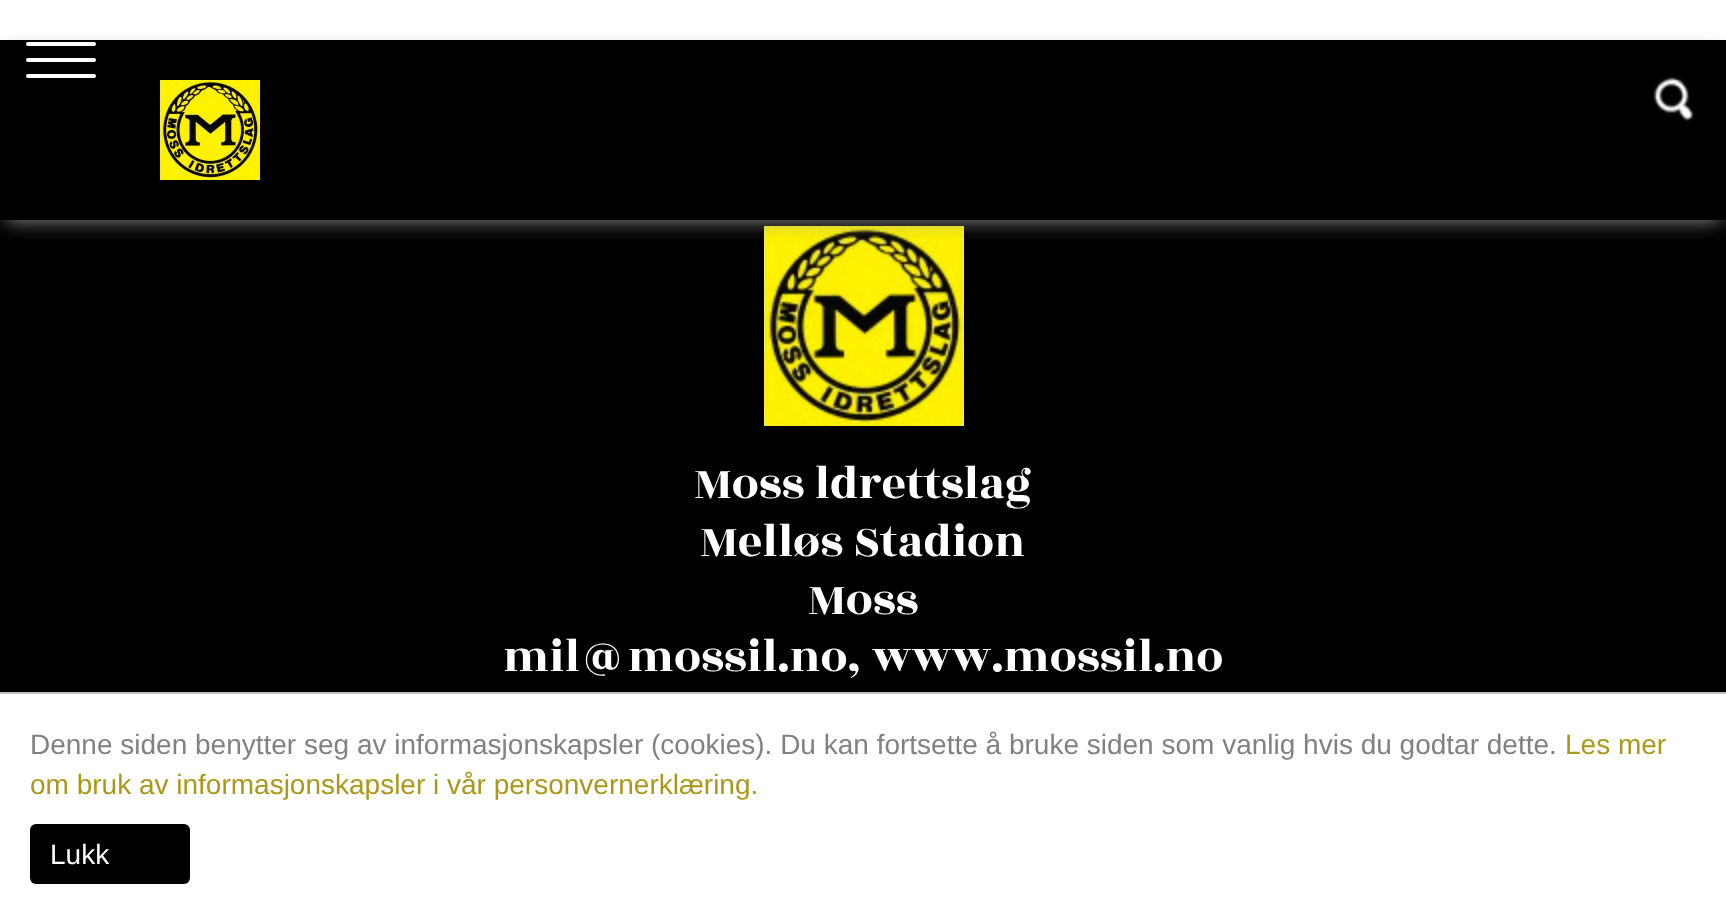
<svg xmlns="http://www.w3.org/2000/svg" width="1726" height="913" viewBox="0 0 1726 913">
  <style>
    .t1 { font: 48px Rozha One; fill: #fff; }
    .t2 { font: 28px Liberation Sans; fill: #818181; }
    .t3 { font: 28px Liberation Sans; fill: #ab981a; }
    .t4 { font: 28px Liberation Sans; fill: #fff; }
  </style>
  <rect width="100%" height="100%" fill="#000"/>
  <rect x="0" y="0" width="1726" height="40" fill="#fff"/>
  <image x="764" y="226" width="200" height="200" href="images/3.png"/>
  <rect x="6" y="52" width="1714" height="168" fill="#999" filter="blur(10px)"/>
  <rect x="0" y="40" width="1726" height="180" fill="#000"/>
  <image x="160" y="80" width="100" height="100" href="images/1.png"/>
  <image x="1653" y="77" width="41" height="44" href="images/2.png"/>
  <rect x="26" y="58" width="70" height="4" rx="2" fill="#fff"/>
  <rect x="26" y="42" width="70" height="4" rx="2" fill="#fff"/>
  <rect x="26" y="74" width="70" height="4" rx="2" fill="#fff"/>
  <text x="694" y="498" class="t1">Moss ldrettslag</text>
  <text x="700" y="556" class="t1">Melløs Stadion</text>
  <text x="808" y="614" class="t1">Moss</text>
  <text x="503" y="671" class="t1">mil@mossil.no, www.mossil.no</text>
  <rect x="0" y="694" width="1726" height="219" fill="#fff"/>
  <rect x="0" y="692" width="1726" height="2" fill="#bfbfbf"/>
  <text x="30" y="754" class="t2">Denne siden benytter seg av informasjonskapsler (cookies). Du kan fortsette å bruke siden som vanlig hvis du godtar dette.</text>
  <text x="1565" y="754" class="t3">Les mer</text>
  <text x="30" y="794" class="t3">om bruk av informasjonskapsler i vår personvernerklæring.</text>
  <rect x="30" y="824" width="160" height="60" rx="6" fill="#000"/>
  <text x="50" y="864" class="t4">Lukk</text>
</svg>
